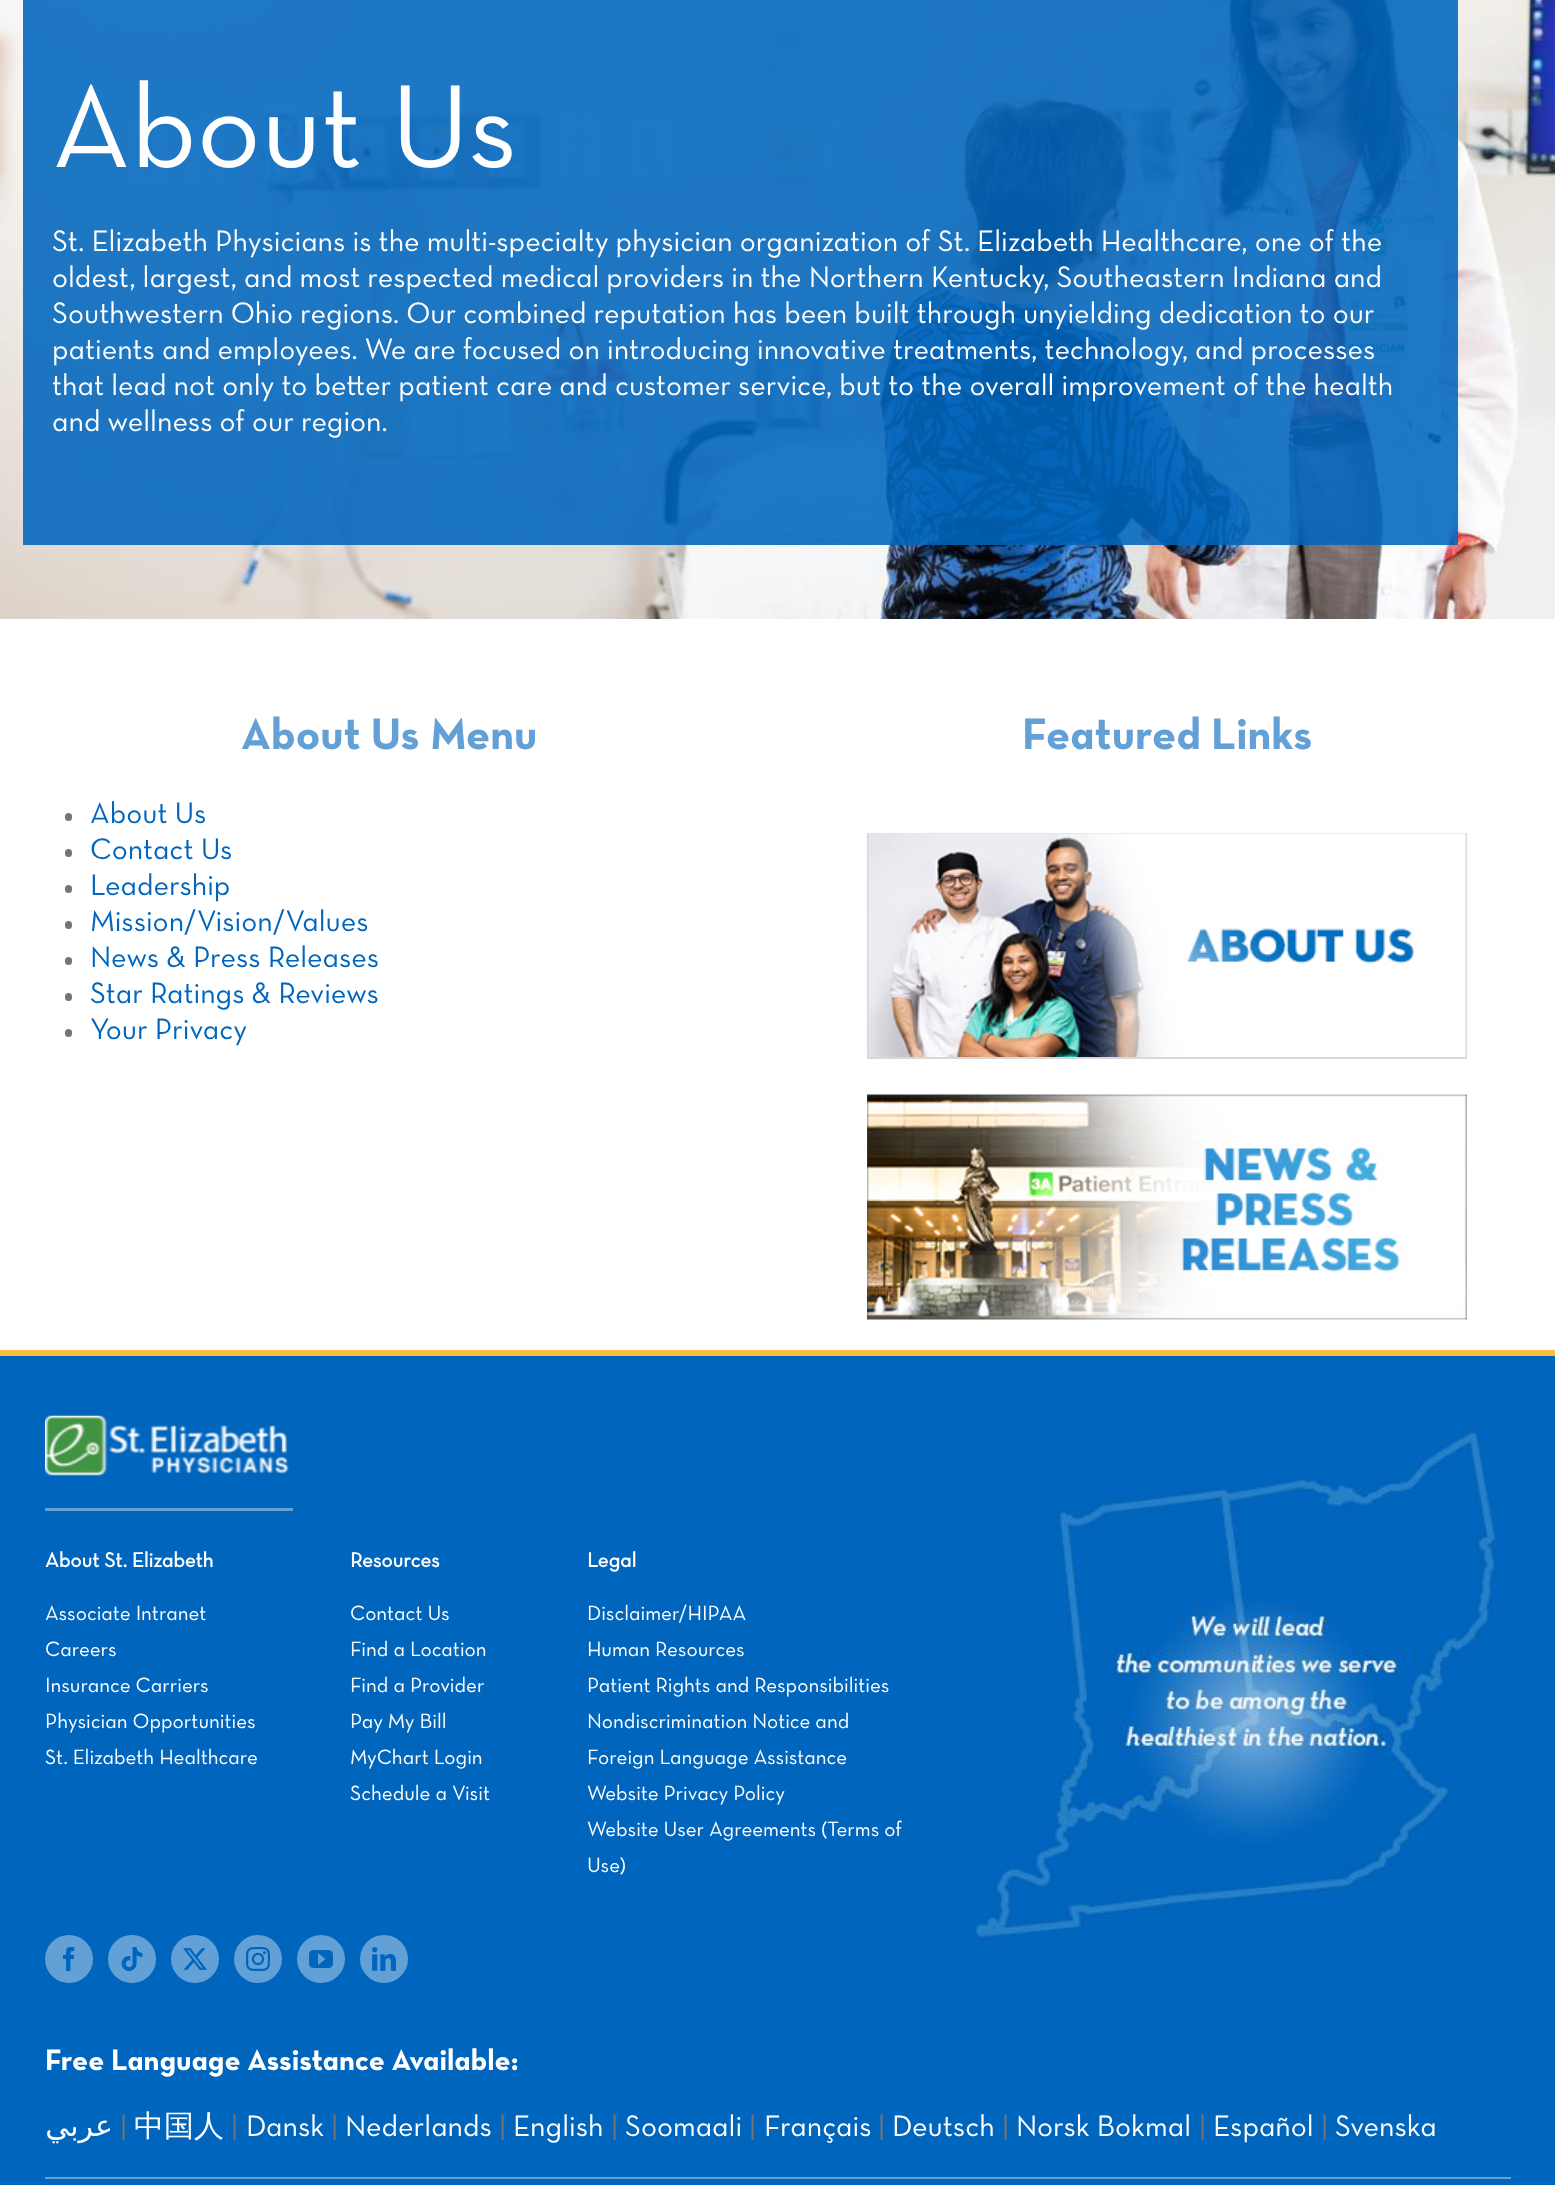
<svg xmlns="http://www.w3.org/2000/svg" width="1555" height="2185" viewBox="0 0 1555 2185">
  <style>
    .t1 { font: 120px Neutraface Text; fill: #fff; }
    .t2 { font: 30px Neutraface Text; fill: #fff; }
    .t3 { font: bold 45px Neutraface Text; fill: #63a0d6; }
    .t4 { font: 30px Neutraface Text; fill: #0065bd; }
    .t5 { font: bold 21px 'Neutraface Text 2'; fill: #fff; }
    .t6 { font: 21px Neutraface Text; fill: #fff; }
    .t7 { font: bold 30px Neutraface Text; fill: #fff; }
    .t8 { font: 30px DejaVu Sans; direction: rtl; fill: #fff; }
    .t9 { font: 30px Neutraface Text; fill: #747474; }
    .t10 { font: 500 30px WenQuanYi Zen Hei; fill: #fff; }
  </style>
  <rect width="100%" height="100%" fill="#fff"/>
  <image x="0" y="0" width="1555" height="619" href="images/1.png"/>
  <rect x="23" y="0" width="1435" height="545" fill="#0065bde0"/>
  <text x="52" y="167" class="t1">About Us</text>
  <text x="52" y="251" class="t2">St. Elizabeth Physicians is the multi-specialty physician organization of St. Elizabeth Healthcare, one of the</text>
  <text x="52" y="287" class="t2">oldest, largest, and most respected medical providers in the Northern Kentucky, Southeastern Indiana and</text>
  <text x="52" y="323" class="t2">Southwestern Ohio regions. Our combined reputation has been built through unyielding dedication to our</text>
  <text x="52" y="359" class="t2">patients and employees. We are focused on introducing innovative treatments, technology, and processes</text>
  <text x="52" y="395" class="t2">that lead not only to better patient care and customer service, but to the overall improvement of the health</text>
  <text x="52" y="431" class="t2">and wellness of our region.</text>
  <text x="241" y="749" class="t3">About Us Menu</text>
  <rect x="65" y="813" width="7" height="8" rx="3.5" fill="#747474"/>
  <text x="90" y="823" class="t4">About Us</text>
  <rect x="65" y="849" width="7" height="8" rx="3.5" fill="#747474"/>
  <text x="90" y="859" class="t4">Contact Us</text>
  <rect x="65" y="885" width="7" height="8" rx="3.5" fill="#747474"/>
  <text x="90" y="895" class="t4">Leadership</text>
  <rect x="65" y="921" width="7" height="8" rx="3.5" fill="#747474"/>
  <text x="90" y="931" class="t4">Mission/Vision/Values</text>
  <rect x="65" y="957" width="7" height="8" rx="3.5" fill="#747474"/>
  <text x="90" y="967" class="t4">News &amp; Press Releases</text>
  <rect x="65" y="993" width="7" height="8" rx="3.5" fill="#747474"/>
  <text x="90" y="1003" class="t4">Star Ratings &amp; Reviews</text>
  <rect x="65" y="1029" width="7" height="8" rx="3.5" fill="#747474"/>
  <text x="90" y="1039" class="t4">Your Privacy</text>
  <text x="1022" y="749" class="t3">Featured Links</text>
  <rect x="868" y="834" width="598" height="224" fill="none" stroke="#d8d8d8" stroke-width="2"/>
  <image x="868" y="833" width="598" height="224" href="images/2.png"/>
  <image x="867" y="1094" width="600" height="226" href="images/3.png"/>
  <rect x="0" y="1356" width="1555" height="829" fill="#0065bd"/>
  <rect x="0" y="1350" width="1555" height="6" fill="#ffbc3d"/>
  <image x="45" y="1415" width="244" height="61" href="images/4.png"/>
  <rect x="45" y="1508" width="248" height="3" fill="#63a0d6"/>
  <text x="45" y="1567" class="t5">About St. Elizabeth</text>
  <text x="45" y="1620" class="t6">Associate Intranet</text>
  <text x="45" y="1656" class="t6">Careers</text>
  <text x="45" y="1692" class="t6">Insurance Carriers</text>
  <text x="45" y="1728" class="t6">Physician Opportunities</text>
  <text x="45" y="1764" class="t6">St. Elizabeth Healthcare</text>
  <text x="350" y="1567" class="t5">Resources</text>
  <text x="350" y="1620" class="t6">Contact Us</text>
  <text x="350" y="1656" class="t6">Find a Location</text>
  <text x="350" y="1692" class="t6">Find a Provider</text>
  <text x="350" y="1728" class="t6">Pay My Bill</text>
  <text x="350" y="1764" class="t6">MyChart Login</text>
  <text x="350" y="1800" class="t6">Schedule a Visit</text>
  <text x="587" y="1567" class="t5">Legal</text>
  <text x="587" y="1620" class="t6">Disclaimer/HIPAA</text>
  <text x="587" y="1656" class="t6">Human Resources</text>
  <text x="587" y="1692" class="t6">Patient Rights and Responsibilities</text>
  <text x="587" y="1728" class="t6">Nondiscrimination Notice and</text>
  <text x="587" y="1764" class="t6">Foreign Language Assistance</text>
  <text x="587" y="1800" class="t6">Website Privacy Policy</text>
  <text x="587" y="1836" class="t6">Website User Agreements (Terms of</text>
  <text x="587" y="1872" class="t6">Use)</text>
  <circle cx="69" cy="1959" r="24" fill="#63a0d6"/>
  <image x="63" y="1947" width="12" height="24" href="images/5.png"/>
  <circle cx="132" cy="1959" r="24" fill="#63a0d6"/>
  <image x="121" y="1947" width="22" height="24" href="images/6.png"/>
  <circle cx="195" cy="1959" r="24" fill="#63a0d6"/>
  <image x="183" y="1948" width="24" height="22" href="images/7.png"/>
  <circle cx="258" cy="1959" r="24" fill="#63a0d6"/>
  <image x="246" y="1947" width="24" height="24" href="images/8.png"/>
  <circle cx="321" cy="1959" r="24" fill="#63a0d6"/>
  <image x="309" y="1950" width="24" height="18" href="images/9.png"/>
  <circle cx="384" cy="1959" r="24" fill="#63a0d6"/>
  <image x="372" y="1947" width="24" height="24" href="images/10.png"/>
  <image x="969" y="1428" width="534" height="522" href="images/11.png"/>
  <text x="45" y="2070" class="t7">Free Language Assistance Available:</text>
  <text x="113" y="2136" class="t8">عربي</text>
  <text x="120" y="2136" class="t9">|</text>
  <text x="134" y="2136" class="t10">中国人</text>
  <text x="231" y="2136" class="t9">|</text>
  <text x="246" y="2136" class="t2">Dansk</text>
  <text x="331" y="2136" class="t9">|</text>
  <text x="345" y="2136" class="t2">Nederlands</text>
  <text x="499" y="2136" class="t9">|</text>
  <text x="513" y="2136" class="t2">English</text>
  <text x="611" y="2136" class="t9">|</text>
  <text x="625" y="2136" class="t2">Soomaali</text>
  <text x="749" y="2136" class="t9">|</text>
  <text x="764" y="2136" class="t2">Français</text>
  <text x="878" y="2136" class="t9">|</text>
  <text x="892" y="2136" class="t2">Deutsch</text>
  <text x="1002" y="2136" class="t9">|</text>
  <text x="1016" y="2136" class="t2">Norsk Bokmal</text>
  <text x="1199" y="2136" class="t9">|</text>
  <text x="1213" y="2136" class="t2">Español</text>
  <text x="1321" y="2136" class="t9">|</text>
  <text x="1335" y="2136" class="t2">Svenska</text>
  <rect x="45" y="2177" width="1466" height="2" fill="#63a0d6"/>
</svg>
